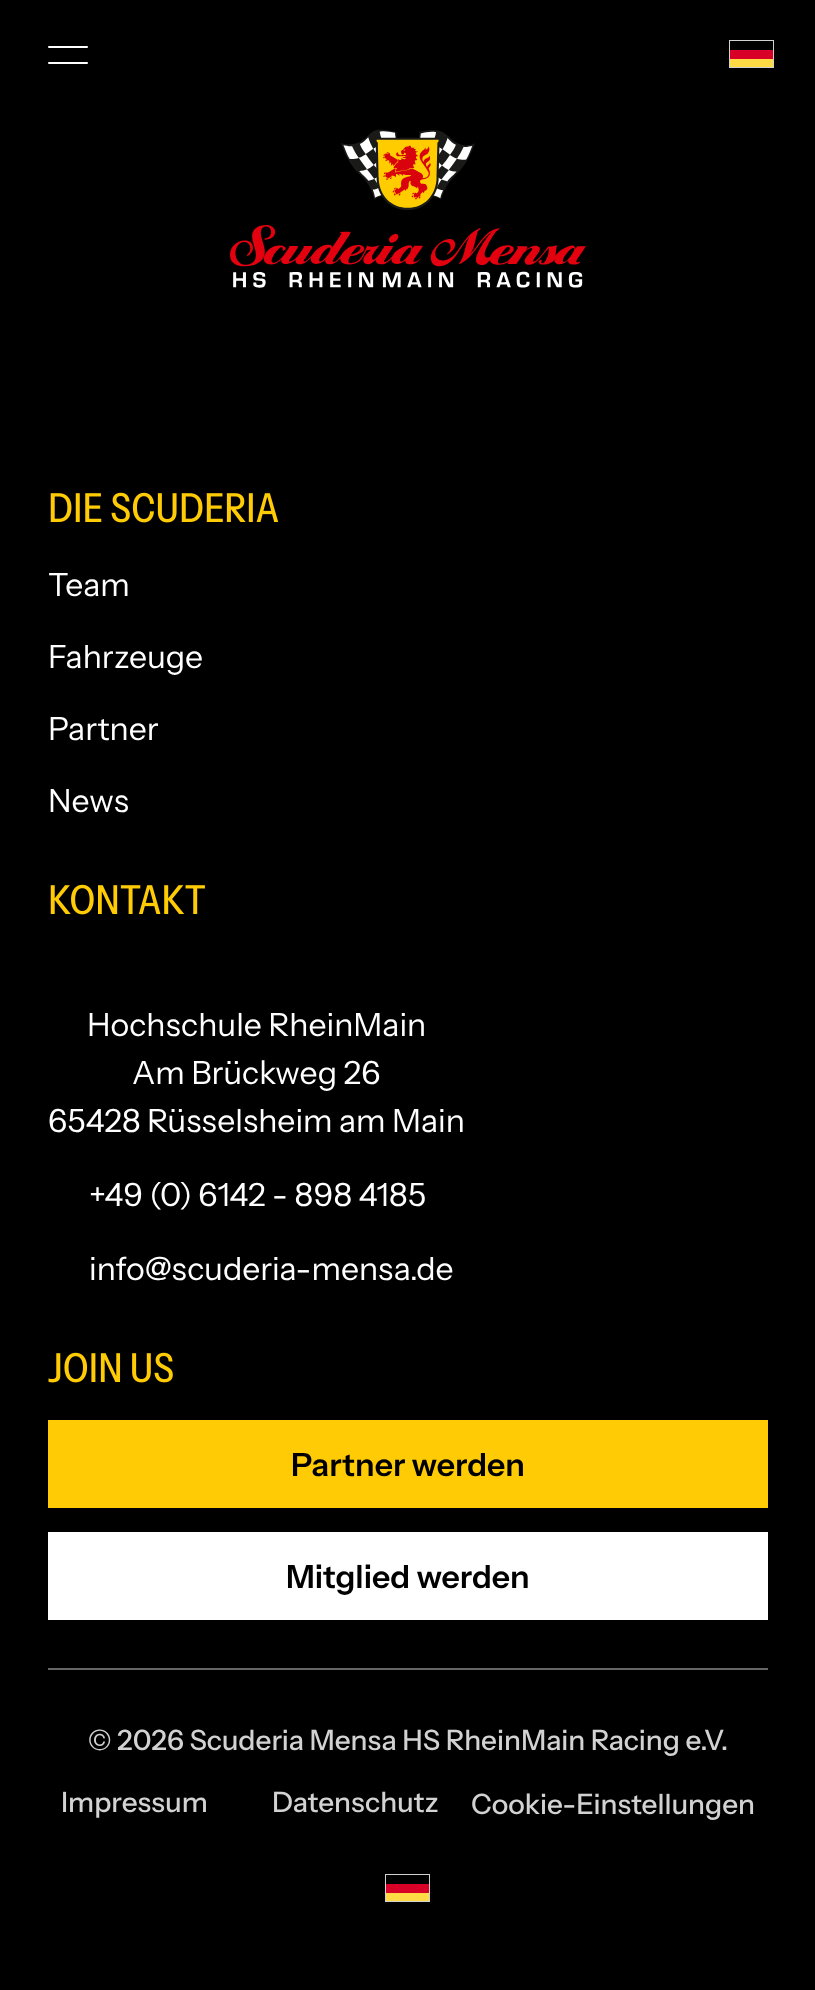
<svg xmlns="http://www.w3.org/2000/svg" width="815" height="1990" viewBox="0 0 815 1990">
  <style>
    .t1 { font: 32px Instrument Sans; fill: #fff; }
    .t2 { font: 600 32px Instrument Sans; fill: #000; }
    .t3 { font: 500 28px Instrument Sans; fill: #d2d2d2; }
  </style>
  <rect width="100%" height="100%" fill="#000"/>
  <rect x="48" y="46" width="40" height="2" rx="1" fill="#fff"/>
  <rect x="48" y="62" width="40" height="2" rx="1" fill="#fff"/>
  <rect x="730" y="41" width="43" height="26" fill="none" stroke="#d2d2d2" stroke-width="2"/>
  <rect x="730" y="50" width="43" height="9" fill="#d80027"/>
  <rect x="730" y="41" width="43" height="9" fill="#000"/>
  <rect x="730" y="59" width="43" height="8" fill="#ffda44"/>
  <image x="230" y="129" width="356" height="159" href="images/1.png"/>
  <image x="50" y="492" width="229" height="31" href="images/2.png"/>
  <text x="48" y="596" class="t1">Team</text>
  <text x="48" y="668" class="t1">Fahrzeuge</text>
  <text x="48" y="740" class="t1">Partner</text>
  <text x="48" y="812" class="t1">News</text>
  <image x="50" y="884" width="155" height="31" href="images/3.png"/>
  <text x="87" y="1036" class="t1">Hochschule RheinMain</text>
  <text x="132" y="1084" class="t1">Am Brückweg 26</text>
  <text x="48" y="1132" class="t1">65428 Rüsselsheim am Main</text>
  <text x="89" y="1206" class="t1">+49 (0) 6142 - 898 4185</text>
  <text x="89" y="1280" class="t1">info@scuderia-mensa.de</text>
  <image x="48" y="1352" width="125" height="31" href="images/4.png"/>
  <rect x="48" y="1420" width="720" height="88" fill="#ffcb05"/>
  <text x="291" y="1476" class="t2">Partner werden</text>
  <rect x="48" y="1532" width="720" height="88" fill="#fff"/>
  <text x="286" y="1588" class="t2">Mitglied werden</text>
  <rect x="48" y="1668" width="720" height="2" fill="#666"/>
  <text x="88" y="1750" class="t3">© 2026 Scuderia Mensa HS RheinMain Racing e.V.</text>
  <text x="61" y="1812" class="t3">Impressum</text>
  <text x="272" y="1812" class="t3">Datenschutz</text>
  <text x="471" y="1814" class="t3">Cookie-Einstellungen</text>
  <rect x="386" y="1875" width="43" height="26" fill="none" stroke="#d2d2d2" stroke-width="2"/>
  <rect x="386" y="1884" width="43" height="9" fill="#d80027"/>
  <rect x="386" y="1875" width="43" height="9" fill="#000"/>
  <rect x="386" y="1893" width="43" height="8" fill="#ffda44"/>
</svg>
